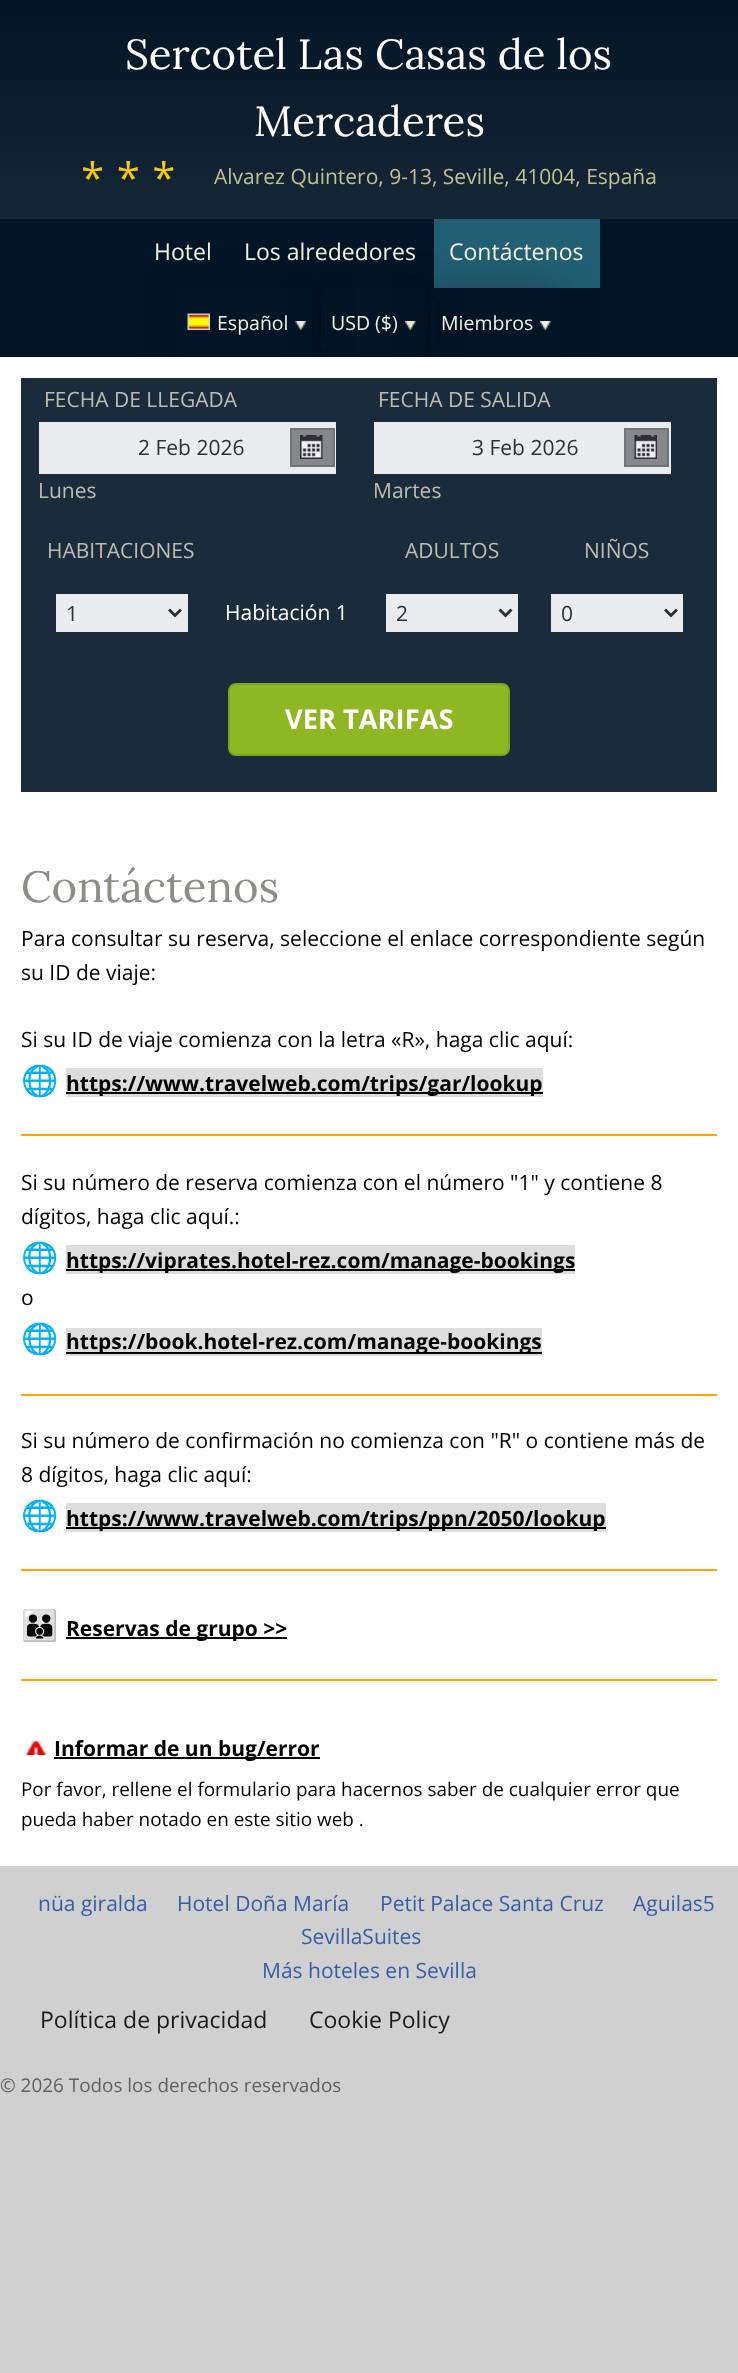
<svg xmlns="http://www.w3.org/2000/svg" width="738" height="2373" viewBox="0 0 738 2373">
  <style>
    .t1 { font: 42px Lora; fill: #fff; }
    .t2 { font: 42px Open Sans; letter-spacing: 12.5px; fill: #f9ca09; }
    .t3 { font: 21px Open Sans; fill: #bfc295; }
    .t4 { font: 23px Open Sans; fill: #f2f2e3; }
    .t5 { font: 19.5px Open Sans; fill: #f2f2e3; }
    .t6 { font: 21px Open Sans; fill: #bebcb2; }
    .t7 { font: 21px Open Sans; fill: #2a3235; }
    .t8 { font: 21px Open Sans; fill: #fff; }
    .t9 { font: bold 27.25px Open Sans; fill: #fff; }
    .t10 { font: 43.75px Lora; fill: #8e8c86; }
    .t11 { font: 21px Open Sans; fill: #000; }
    .t12 { font: 30px Noto Color Emoji; fill: #000; }
    .t13 { font: bold 21px Open Sans; fill: #000; }
    .t14 { font: 18.9px Open Sans; fill: #000; }
    .t15 { font: 21px Open Sans; fill: #385da6; }
    .t16 { font: 23px Open Sans; fill: #1a1a18; }
    .t17 { font: 18.9px Open Sans; fill: #62605e; }
  </style>
  <defs>
    <linearGradient id="g1" gradientUnits="userSpaceOnUse" x1="369" y1="0" x2="369" y2="219"><stop offset="0" stop-color="#021526"/><stop offset="1" stop-color="#162736"/></linearGradient>
    <clipPath id="clip1"><path d="M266 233H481V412H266ZM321 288H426V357H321Z" clip-rule="evenodd"/></clipPath>
    <clipPath id="clip2"><path d="M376 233H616V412H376ZM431 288H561V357H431Z" clip-rule="evenodd"/></clipPath>
  </defs>
  <rect width="100%" height="100%" fill="#d0d0d0"/>
  <rect x="0" y="0" width="738" height="219" fill="url(#g1)"/>
  <text x="125" y="69" class="t1">Sercotel Las Casas de los</text>
  <text x="254" y="136" class="t1">Mercaderes</text>
  <text x="81" y="193" class="t2">***</text>
  <text x="214" y="184" class="t3">Alvarez Quintero, 9-13, Seville, 41004, España</text>
  <rect x="0" y="219" width="738" height="138" fill="#021526"/>
  <text x="154" y="260" class="t4">Hotel</text>
  <text x="244" y="260" class="t4">Los alrededores</text>
  <rect x="434" y="219" width="166" height="69" fill="#225f72"/>
  <text x="449" y="260" class="t4">Contáctenos</text>
  <rect x="177" y="288" width="140" height="69" fill="#00000045" filter="blur(18px)"/>
  <rect x="177" y="288" width="140" height="69" fill="#021526"/>
  <image x="187" y="313" width="23" height="17" href="images/1.png"/>
  <text x="217" y="330" class="t5">Español</text>
  <image x="295" y="321" width="11" height="9" href="images/2.png"/>
  <g clip-path="url(#clip1)">
    <rect x="321" y="288" width="105" height="69" fill="#00000045" filter="blur(18px)"/>
  </g>
  <rect x="321" y="297" width="6" height="51" fill="#021526e6"/>
  <text x="331" y="330" class="t5">USD ($)</text>
  <image x="405" y="321" width="11" height="9" href="images/3.png"/>
  <g clip-path="url(#clip2)">
    <rect x="431" y="288" width="130" height="69" fill="#00000045" filter="blur(18px)"/>
  </g>
  <rect x="431" y="300" width="5" height="45" fill="#021526e6"/>
  <text x="441" y="330" class="t5">Miembros</text>
  <image x="540" y="321" width="11" height="9" href="images/4.png"/>
  <rect x="0" y="357" width="738" height="1509" fill="#fff"/>
  <rect x="21" y="378" width="696" height="414" fill="#1a2c3b"/>
  <text x="44" y="407" class="t6">FECHA DE LLEGADA</text>
  <rect x="39" y="422" width="297" height="52" fill="#ebeced"/>
  <rect x="292" y="430" width="41" height="35" fill="#868788"/>
  <image x="300" y="435" width="23" height="24" href="images/5.png"/>
  <rect x="291" y="429" width="43" height="37" fill="none" stroke="#6e747a" stroke-width="2"/>
  <text x="138" y="455" class="t7">2 Feb 2026</text>
  <text x="38" y="498" class="t6">Lunes</text>
  <text x="378" y="407" class="t6">FECHA DE SALIDA</text>
  <rect x="374" y="422" width="297" height="52" fill="#ebeced"/>
  <rect x="626" y="430" width="41" height="35" fill="#868788"/>
  <image x="634" y="435" width="23" height="24" href="images/6.png"/>
  <rect x="625" y="429" width="43" height="37" fill="none" stroke="#6e747a" stroke-width="2"/>
  <text x="472" y="455" class="t7">3 Feb 2026</text>
  <text x="373" y="498" class="t6">Martes</text>
  <text x="47" y="558" class="t6">HABITACIONES</text>
  <text x="405" y="558" class="t6">ADULTOS</text>
  <text x="584" y="558" class="t6">NIÑOS</text>
  <rect x="56" y="594" width="132" height="38" fill="#ebeced"/>
  <path d="M169 609.5L175 615.5L181 609.5" fill="none" stroke="#2a3235" stroke-width="3"/>
  <text x="66" y="621" class="t7">1</text>
  <text x="225" y="620" class="t8">Habitación 1</text>
  <rect x="386" y="594" width="132" height="38" fill="#ebeced"/>
  <path d="M499.5 609.5L505.5 615.5L511.5 609.5" fill="none" stroke="#2a3235" stroke-width="3"/>
  <text x="396" y="621" class="t7">2</text>
  <rect x="551" y="594" width="132" height="38" fill="#ebeced"/>
  <path d="M665 609.5L671 615.5L677 609.5" fill="none" stroke="#2a3235" stroke-width="3"/>
  <text x="561" y="621" class="t7">0</text>
  <rect x="229" y="684" width="280" height="71" rx="7" fill="#8eb724" stroke="#80a51e" stroke-width="2"/>
  <text x="285" y="729" class="t9">VER TARIFAS</text>
  <text x="21" y="902" class="t10">Contáctenos</text>
  <text x="21" y="946" class="t11">Para consultar su reserva, seleccione el enlace correspondiente según</text>
  <text x="21" y="980" class="t11">su ID de viaje:</text>
  <text x="21" y="1047" class="t11">Si su ID de viaje comienza con la letra «R», haga clic aquí:</text>
  <text x="21" y="1091" class="t12">🌐</text>
  <rect x="66" y="1068" width="477" height="29" fill="#ddd"/>
  <rect x="66" y="1092" width="477" height="2" fill="#000"/>
  <text x="66" y="1091" class="t13">https://www.travelweb.com/trips/gar/lookup</text>
  <rect x="21" y="1134" width="696" height="2" fill="#ffa500"/>
  <text x="21" y="1190" class="t11">Si su número de reserva comienza con el número "1" y contiene 8</text>
  <text x="21" y="1224" class="t11">dígitos, haga clic aquí.:</text>
  <text x="21" y="1268" class="t12">🌐</text>
  <rect x="66" y="1245" width="509" height="29" fill="#ddd"/>
  <rect x="66" y="1269" width="509" height="2" fill="#000"/>
  <text x="66" y="1268" class="t13">https://viprates.hotel-rez.com/manage-bookings</text>
  <text x="21" y="1305" class="t11">o</text>
  <text x="21" y="1349" class="t12">🌐</text>
  <rect x="66" y="1328" width="476" height="28" fill="#ddd"/>
  <rect x="66" y="1352" width="476" height="2" fill="#000"/>
  <text x="66" y="1349" class="t13">https://book.hotel-rez.com/manage-bookings</text>
  <rect x="21" y="1394" width="696" height="2" fill="#ffa500"/>
  <text x="21" y="1448" class="t11">Si su número de confirmación no comienza con "R" o contiene más de</text>
  <text x="21" y="1482" class="t11">8 dígitos, haga clic aquí:</text>
  <text x="21" y="1526" class="t12">🌐</text>
  <rect x="66" y="1503" width="540" height="29" fill="#ddd"/>
  <rect x="66" y="1527" width="540" height="2" fill="#000"/>
  <text x="66" y="1526" class="t13">https://www.travelweb.com/trips/ppn/2050/lookup</text>
  <rect x="21" y="1569" width="696" height="2" fill="#ffa500"/>
  <text x="21" y="1636" class="t12">👪</text>
  <rect x="66" y="1637" width="221" height="2" fill="#000"/>
  <text x="66" y="1636" class="t13">Reservas de grupo &gt;&gt;</text>
  <rect x="21" y="1679" width="696" height="2" fill="#ffa500"/>
  <image x="25" y="1740" width="22" height="15" href="images/7.png"/>
  <rect x="54" y="1757" width="266" height="2" fill="#000"/>
  <text x="54" y="1756" class="t13">Informar de un bug/error</text>
  <text x="21" y="1796" class="t14">Por favor, rellene el formulario para hacernos saber de cualquier error que</text>
  <text x="21" y="1826" class="t14">pueda haber notado en este sitio web .</text>
  <text x="38" y="1911" class="t15">nüa giralda</text>
  <text x="177" y="1911" class="t15">Hotel Doña María</text>
  <text x="380" y="1911" class="t15">Petit Palace Santa Cruz</text>
  <text x="633" y="1911" class="t15">Aguilas5</text>
  <text x="301" y="1944" class="t15">SevillaSuites</text>
  <text x="262" y="1978" class="t15">Más hoteles en Sevilla</text>
  <text x="40" y="2028" class="t16">Política de privacidad</text>
  <text x="309" y="2028" class="t16">Cookie Policy</text>
  <text x="0" y="2092" class="t17">© 2026 Todos los derechos reservados</text>
</svg>
